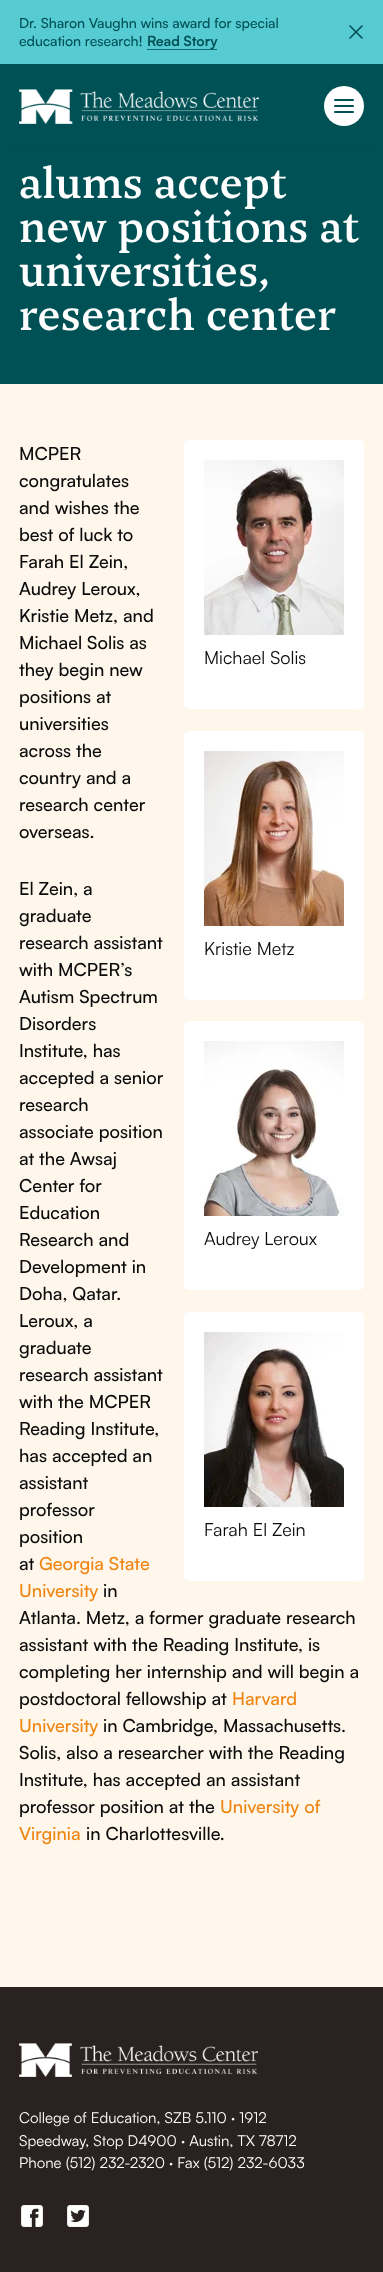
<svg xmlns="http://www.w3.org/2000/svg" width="383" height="2272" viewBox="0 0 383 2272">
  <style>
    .t1 { font: 500 14px Satoshi; letter-spacing: -0.05px; fill: #005156; }
    .t2 { font: bold 14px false; letter-spacing: -0.05px; fill: #005156; }
    .t3 { font: 500 44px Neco; fill: #fff; }
    .t4 { font: 500 18px Satoshi; fill: #0b0b0b; }
    .t5 { font: 18px false; fill: #0b0b0b; }
    .t6 { font: 500 18px Satoshi; fill: #ef8512; }
    .t7 { font: 15px false; fill: #fff; }
  </style>
  <rect width="100%" height="100%" fill="#fff7eb"/>
  <rect x="0" y="149" width="383" height="235" fill="#005156"/>
  <rect x="0" y="-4" width="383" height="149" fill="#121b2026" filter="blur(8px)"/>
  <rect x="0" y="64" width="383" height="85" fill="#005156"/>
  <rect x="0" y="0" width="383" height="64" fill="#56cbd2"/>
  <text x="19" y="28" class="t1">Dr. Sharon Vaughn wins award for special</text>
  <text x="19" y="46" class="t1">education research!</text>
  <text x="147" y="46" class="t2">Read Story</text>
  <rect x="147" y="49" width="70" height="1" fill="#005156cc"/>
  <image x="349" y="25" width="14" height="14" href="images/1.png"/>
  <image x="19" y="89" width="240" height="35" href="images/2.png"/>
  <circle cx="344" cy="106" r="20" fill="#fff"/>
  <rect x="334" y="99" width="20" height="2" rx="1" fill="#005156"/>
  <rect x="334" y="105" width="20" height="2" rx="1" fill="#005156"/>
  <rect x="334" y="111" width="20" height="2" rx="1" fill="#005156"/>
  <text x="19" y="198" class="t3">alums accept</text>
  <text x="19" y="242" class="t3">new positions at</text>
  <text x="19" y="286" class="t3">universities,</text>
  <text x="19" y="330" class="t3">research center</text>
  <text x="19" y="460" class="t4">MCPER</text>
  <text x="19" y="487" class="t4">congratulates</text>
  <text x="19" y="514" class="t4">and wishes the</text>
  <text x="19" y="541" class="t4">best of luck to</text>
  <text x="19" y="568" class="t4">Farah El Zein,</text>
  <text x="19" y="595" class="t4">Audrey Leroux,</text>
  <text x="19" y="622" class="t4">Kristie Metz, and</text>
  <text x="19" y="649" class="t4">Michael Solis as</text>
  <text x="19" y="676" class="t4">they begin new</text>
  <text x="19" y="703" class="t4">positions at</text>
  <text x="19" y="730" class="t4">universities</text>
  <text x="19" y="757" class="t4">across the</text>
  <text x="19" y="784" class="t4">country and a</text>
  <text x="19" y="811" class="t4">research center</text>
  <text x="19" y="838" class="t4">overseas.</text>
  <rect x="184" y="440" width="180" height="269" rx="5" fill="#fff"/>
  <image x="204" y="460" width="140" height="175" href="images/3.png"/>
  <text x="204" y="664" class="t5">Michael Solis</text>
  <text x="19" y="895" class="t4">El Zein, a</text>
  <text x="19" y="922" class="t4">graduate</text>
  <text x="19" y="949" class="t4">research assistant</text>
  <text x="19" y="976" class="t4">with MCPER’s</text>
  <text x="19" y="1003" class="t4">Autism Spectrum</text>
  <text x="19" y="1030" class="t4">Disorders</text>
  <text x="19" y="1057" class="t4">Institute, has</text>
  <text x="19" y="1084" class="t4">accepted a senior</text>
  <text x="19" y="1111" class="t4">research</text>
  <text x="19" y="1138" class="t4">associate position</text>
  <text x="19" y="1165" class="t4">at the Awsaj</text>
  <text x="19" y="1192" class="t4">Center for</text>
  <text x="19" y="1219" class="t4">Education</text>
  <text x="19" y="1246" class="t4">Research and</text>
  <text x="19" y="1273" class="t4">Development in</text>
  <text x="19" y="1300" class="t4">Doha, Qatar.</text>
  <text x="19" y="1327" class="t4">Leroux, a</text>
  <text x="19" y="1354" class="t4">graduate</text>
  <text x="19" y="1381" class="t4">research assistant</text>
  <text x="19" y="1408" class="t4">with the MCPER</text>
  <text x="19" y="1435" class="t4">Reading Institute,</text>
  <text x="19" y="1462" class="t4">has accepted an</text>
  <text x="19" y="1489" class="t4">assistant</text>
  <text x="19" y="1516" class="t4">professor</text>
  <text x="19" y="1543" class="t4">position</text>
  <text x="19" y="1570" class="t4">at</text>
  <text x="39" y="1570" class="t6">Georgia State</text>
  <text x="19" y="1597" class="t6">University</text>
  <text x="103" y="1597" class="t4">in</text>
  <text x="19" y="1624" class="t4">Atlanta. Metz, a former graduate research</text>
  <text x="19" y="1651" class="t4">assistant with the Reading Institute, is</text>
  <text x="19" y="1678" class="t4">completing her internship and will begin a</text>
  <text x="19" y="1705" class="t4">postdoctoral fellowship at</text>
  <text x="232" y="1705" class="t6">Harvard</text>
  <text x="19" y="1732" class="t6">University</text>
  <text x="103" y="1732" class="t4">in Cambridge, Massachusetts.</text>
  <text x="19" y="1759" class="t4">Solis, also a researcher with the Reading</text>
  <text x="19" y="1786" class="t4">Institute, has accepted an assistant</text>
  <text x="19" y="1813" class="t4">professor position at the</text>
  <text x="220" y="1813" class="t6">University of</text>
  <text x="19" y="1840" class="t6">Virginia</text>
  <text x="86" y="1840" class="t4">in Charlottesville.</text>
  <rect x="184" y="731" width="180" height="269" rx="5" fill="#fff"/>
  <image x="204" y="751" width="140" height="175" href="images/4.png"/>
  <text x="204" y="955" class="t5">Kristie Metz</text>
  <rect x="184" y="1021" width="180" height="269" rx="5" fill="#fff"/>
  <image x="204" y="1041" width="140" height="175" href="images/5.png"/>
  <text x="204" y="1245" class="t5">Audrey Leroux</text>
  <rect x="184" y="1312" width="180" height="269" rx="5" fill="#fff"/>
  <image x="204" y="1332" width="140" height="175" href="images/6.png"/>
  <text x="204" y="1536" class="t5">Farah El Zein</text>
  <rect x="0" y="1987" width="383" height="285" fill="#2a2121"/>
  <image x="19" y="2043" width="239" height="34" href="images/7.png"/>
  <text x="19" y="2123" class="t7">College of Education, SZB 5.110 · 1912</text>
  <text x="19" y="2146" class="t7">Speedway, Stop D4900 · Austin, TX 78712</text>
  <text x="19" y="2168" class="t7">Phone (512) 232-2320</text>
  <text x="169" y="2168" class="t7">· Fax (512) 232-6033</text>
  <image x="21" y="2205" width="22" height="22" href="images/8.png"/>
  <image x="67" y="2205" width="22" height="22" href="images/9.png"/>
</svg>
